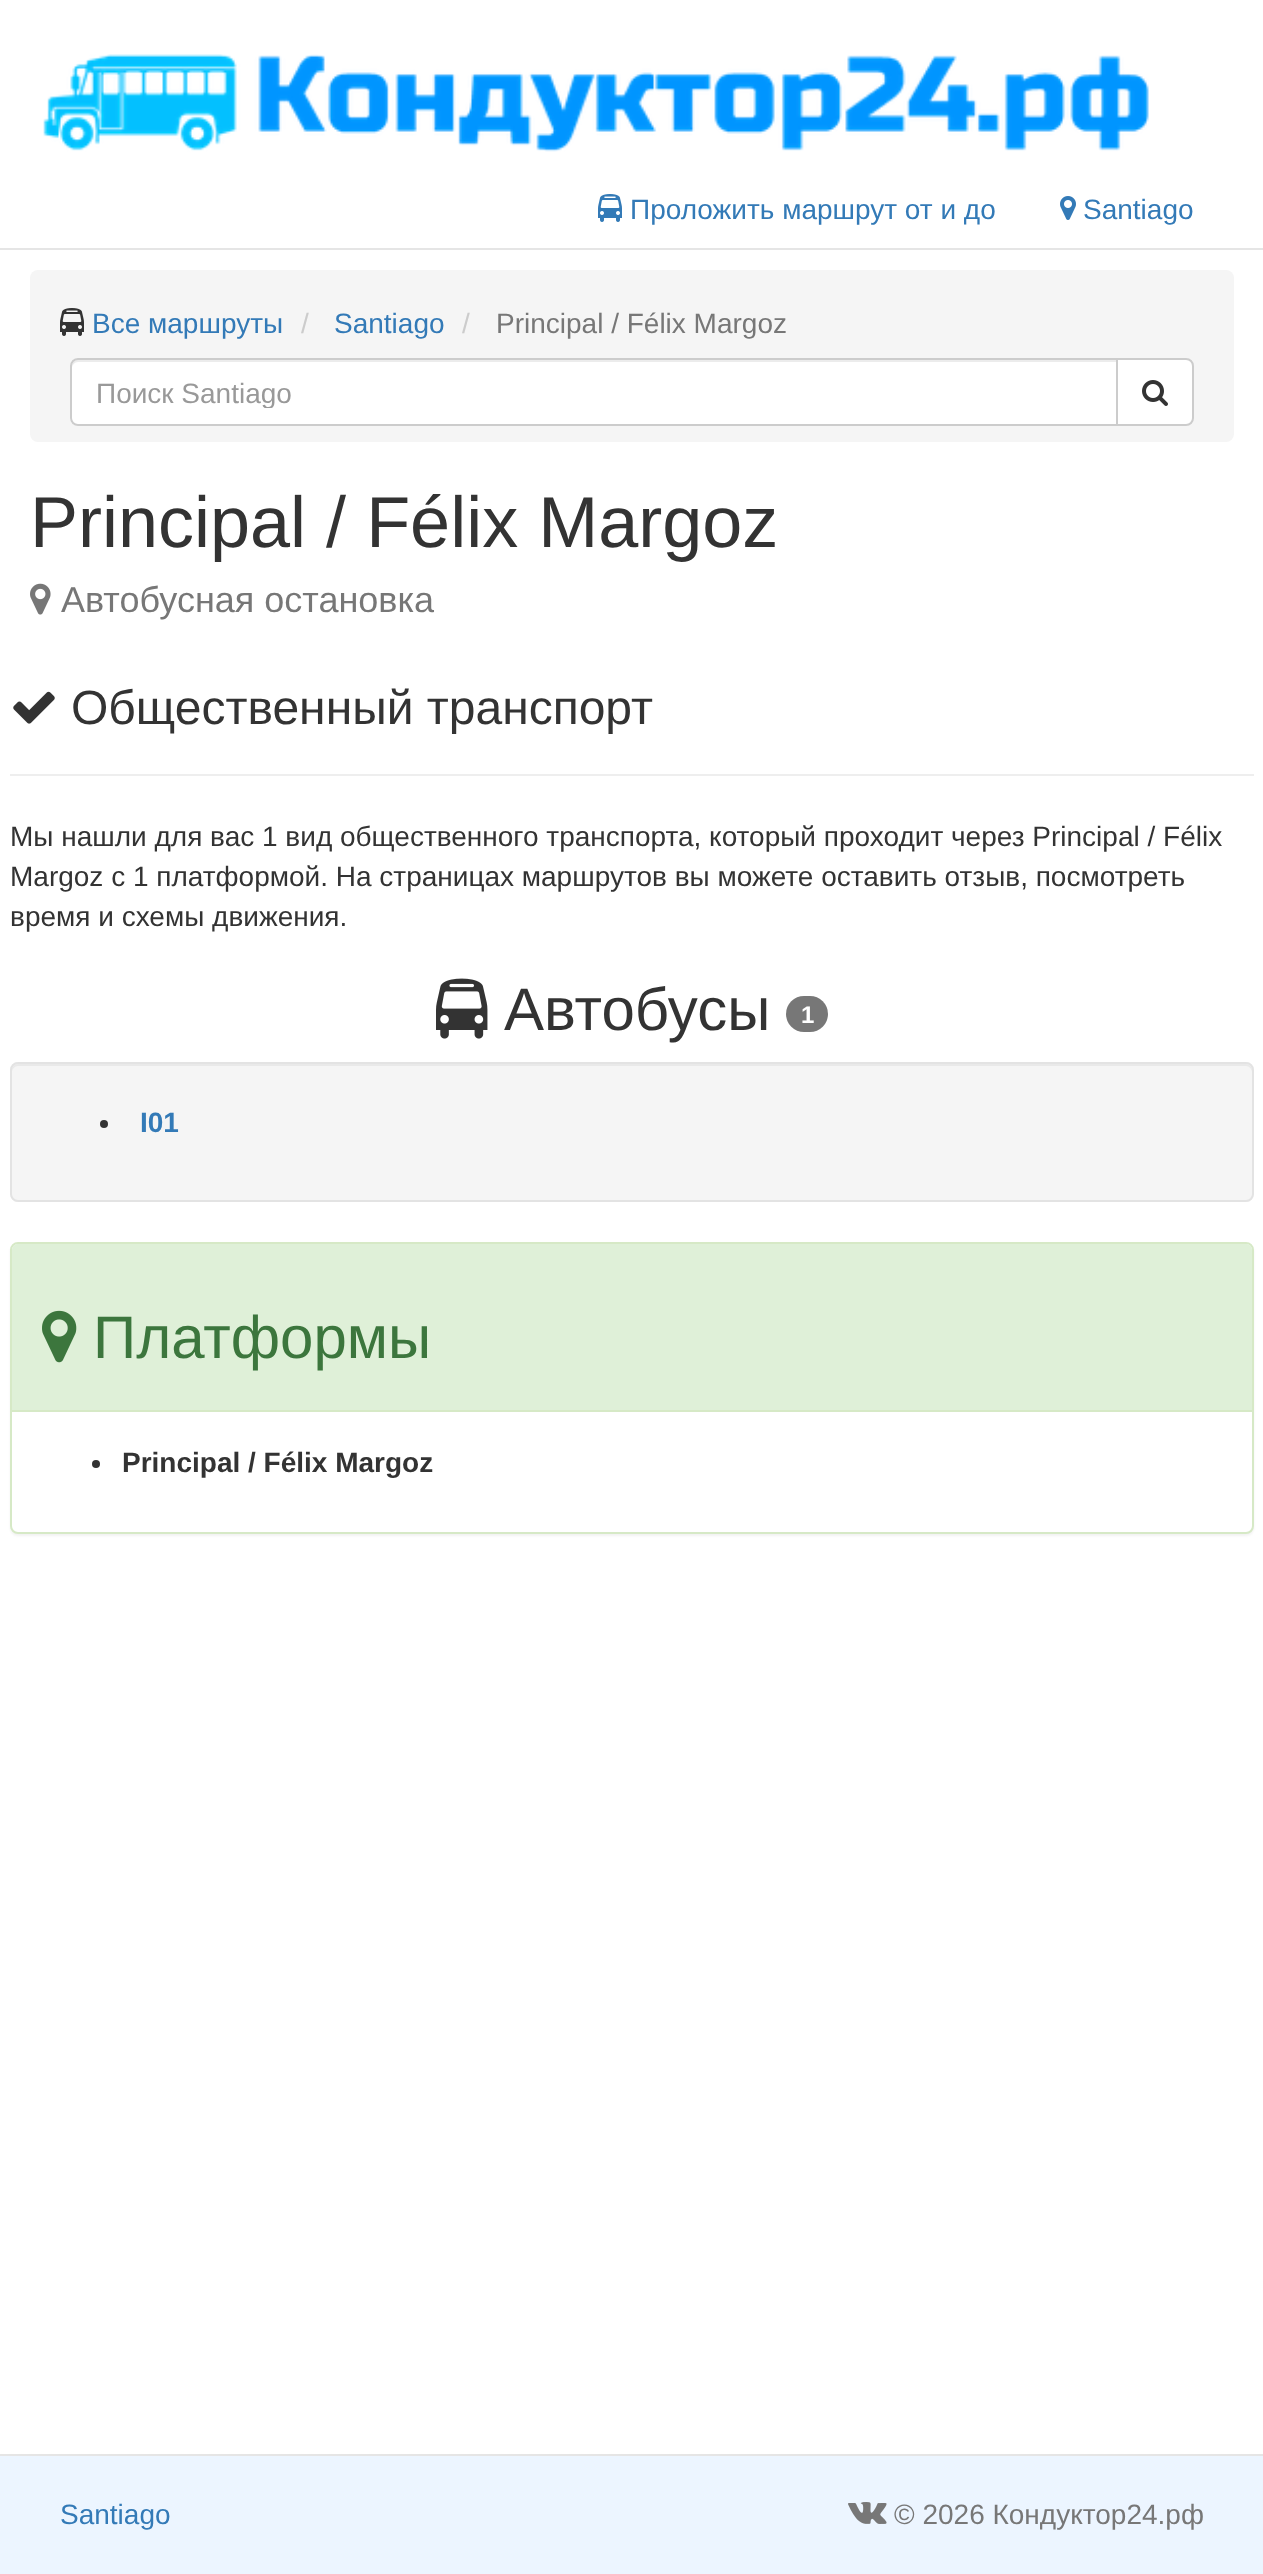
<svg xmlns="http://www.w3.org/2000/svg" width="1263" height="2574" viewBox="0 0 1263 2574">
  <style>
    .t1 { font: 28px Liberation Sans; fill: #337ab7; }
    .t2 { font: 28px Liberation Sans; fill: #ccc; }
    .t3 { font: 28px Liberation Sans; fill: #777; }
    .t4 { font: 28px Liberation Sans; fill: #999; }
    .t5 { font: 72px Liberation Sans; fill: #333; }
    .t6 { font: 36px Liberation Sans; fill: #777; }
    .t7 { font: 48px Liberation Sans; fill: #333; }
    .t8 { font: 28px Liberation Sans; fill: #333; }
    .t9 { font: 60px Liberation Sans; fill: #333; }
    .t10 { font: bold 24px Liberation Sans; fill: #fff; }
    .t11 { font: bold 28px Liberation Sans; fill: #337ab7; }
    .t12 { font: 60px Liberation Sans; fill: #3c763d; }
    .t13 { font: bold 28px Liberation Sans; fill: #333; }
  </style>
  <defs>
    <clipPath id="clip1"><rect x="96" y="376" width="996" height="32"/></clipPath>
  </defs>
  <rect width="100%" height="100%" fill="#fff"/>
  <rect x="0" y="248" width="1263" height="2" fill="#e5e5e5"/>
  <image x="43" y="54" width="1106" height="98" href="images/1.png"/>
  <image x="598" y="194" width="24" height="28" href="images/2.png"/>
  <text x="630" y="219" class="t1">Проложить маршрут от и до</text>
  <image x="1060" y="196" width="16" height="24" href="images/3.png"/>
  <text x="1083" y="219" class="t1">Santiago</text>
  <rect x="30" y="270" width="1204" height="172" rx="8" fill="#f5f5f5"/>
  <image x="60" y="308" width="24" height="28" href="images/4.png"/>
  <text x="92" y="333" class="t1">Все маршруты</text>
  <text x="301" y="333" class="t2">/</text>
  <text x="334" y="333" class="t1">Santiago</text>
  <text x="462" y="333" class="t2">/</text>
  <text x="496" y="333" class="t3">Principal / Félix Margoz</text>
  <path d="M78 358H1118V426H78C73.5 426 70 422.5 70 418V366C70 361.5 73.5 358 78 358Z" fill="#fff"/>
  <path d="M78 362H1116V360H78C73 360 72 364 72 368C72 365 75 362 78 362Z" fill="#ececec"/>
  <path d="M78 359H1117V425H78C74 425 71 422 71 418V366C71 362 74 359 78 359Z" fill="none" stroke="#ccc" stroke-width="2"/>
  <g clip-path="url(#clip1)">
    <text x="96" y="403" class="t4">Поиск Santiago</text>
  </g>
  <path d="M1117 359H1186C1190 359 1193 362 1193 366V418C1193 422 1190 425 1186 425H1117Z" fill="#fff" stroke="#ccc" stroke-width="2"/>
  <image x="1142" y="380" width="26" height="26" href="images/5.png"/>
  <text x="30" y="547" class="t5">Principal / Félix Margoz</text>
  <image x="30" y="583" width="21" height="32" href="images/6.png"/>
  <text x="61" y="612" class="t6">Автобусная остановка</text>
  <image x="13" y="691" width="42" height="33" href="images/7.png"/>
  <text x="71" y="724" class="t7">Общественный транспорт</text>
  <rect x="10" y="774" width="1244" height="2" fill="#eee"/>
  <text x="10" y="846" class="t8">Мы нашли для вас 1 вид общественного транспорта, который проходит через Principal / Félix</text>
  <text x="10" y="886" class="t8">Margoz с 1 платформой. На страницах маршрутов вы можете оставить отзыв, посмотреть</text>
  <text x="10" y="926" class="t8">время и схемы движения.</text>
  <image x="436" y="978" width="52" height="61" href="images/8.png"/>
  <text x="504" y="1030" class="t9">Автобусы</text>
  <rect x="786" y="996" width="42" height="36" rx="18" fill="#777"/>
  <text x="801" y="1023" class="t10">1</text>
  <rect x="10" y="1062" width="1244" height="140" rx="8" fill="#f5f5f5"/>
  <path d="M18 1066H1246C1249 1066 1252 1069 1252 1072V1070C1252 1067 1249 1064 1246 1064H18C15 1064 12 1067 12 1070V1072C12 1069 15 1066 18 1066Z" fill="#e9e9e9"/>
  <rect x="11" y="1063" width="1242" height="138" rx="7" fill="none" stroke="#e3e3e3" stroke-width="2"/>
  <circle cx="104" cy="1124" r="4" fill="#333"/>
  <text x="140" y="1132" class="t11">I01</text>
  <rect x="10" y="1244" width="1244" height="292" rx="8" fill="#0000000d" filter="blur(1px)"/>
  <rect x="11" y="1243" width="1242" height="290" rx="7" fill="#fff" stroke="#d6e9c6" stroke-width="2"/>
  <path d="M18 1244H1246C1249.5 1244 1252 1246.5 1252 1250V1412H12V1250C12 1246.5 14.5 1244 18 1244Z" fill="#dff0d8"/>
  <rect x="12" y="1410" width="1240" height="2" fill="#d6e9c6"/>
  <image x="42" y="1310" width="35" height="53" href="images/9.png"/>
  <text x="93" y="1358" class="t12">Платформы</text>
  <circle cx="96" cy="1464" r="4" fill="#333"/>
  <text x="122" y="1472" class="t13">Principal / Félix Margoz</text>
  <rect x="0" y="2456" width="1263" height="118" fill="#ecf5ff"/>
  <rect x="0" y="2454" width="1263" height="2" fill="#e5e5e5"/>
  <text x="60" y="2524" class="t1">Santiago</text>
  <image x="848" y="2502" width="39" height="22" href="images/10.png"/>
  <text x="894" y="2524" class="t3">© 2026 Кондуктор24.рф</text>
</svg>
